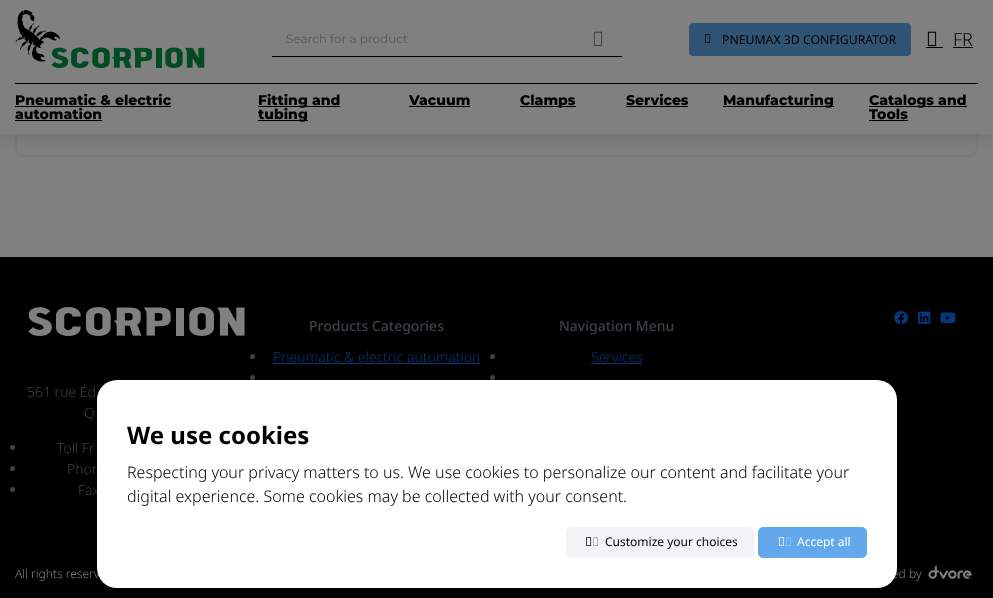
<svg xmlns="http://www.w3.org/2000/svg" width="993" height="598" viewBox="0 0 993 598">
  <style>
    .t1 { font: 12px Montserrat; fill: #52585c; }
    .t2 { font: 12.25px Noto Sans; fill: #000; }
    .t3 { font: 300 18px Noto Sans; fill: #000; }
    .t4 { font: 800 14px Montserrat; fill: #000; }
    .t5 { font: 500 14px Noto Sans; fill: #3b4248; }
    .t6 { font: 300 14px Noto Sans; fill: #07377f; }
    .t7 { font: 300 14px Noto Sans; fill: #3b4248; }
    .t8 { font: 300 12px Noto Sans; fill: #808080; }
    .t9 { font: bold 24px Noto Sans; fill: #000; }
    .t10 { font: 300 16px Noto Sans; fill: #000; }
    .t11 { font: 12px Noto Sans; fill: #000; }
    .t12 { font: 12px Noto Sans; fill: #fff; }
  </style>
  <rect width="100%" height="100%" fill="#808080"/>
  <path d="M16-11H968C973-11 977-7 977-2V147C977 152 973 156 968 156H25C20 156 16 152 16 147Z" fill="none" stroke="#797a7a" stroke-width="2"/>
  <rect x="0" y="5" width="993" height="134" fill="#0000001a" filter="blur(10px)"/>
  <rect x="0" y="0" width="993" height="134" fill="#808080"/>
  <image x="15" y="10" width="190" height="58" href="images/1.png"/>
  <rect x="272" y="56" width="350" height="1" fill="#000"/>
  <text x="286" y="43" class="t1">Search for a product</text>
  <image x="593" y="31" width="10" height="15" href="images/2.png"/>
  <rect x="689.5" y="23.5" width="221" height="32" rx="3.5" fill="#315475" stroke="#315475"/>
  <image x="705" y="34" width="6" height="9" href="images/3.png"/>
  <text x="722" y="44" class="t2">PNEUMAX 3D CONFIGURATOR</text>
  <image x="927" y="31" width="10" height="15" href="images/4.png"/>
  <rect x="926" y="47" width="17" height="1" fill="#000"/>
  <text x="953" y="46" class="t3">FR</text>
  <rect x="953" y="47" width="20" height="1" fill="#000"/>
  <rect x="15" y="83" width="963" height="1" fill="#000"/>
  <text x="15" y="105" class="t4">Pneumatic &amp; electric</text>
  <rect x="15" y="106" width="156" height="1" fill="#000"/>
  <text x="15" y="119" class="t4">automation</text>
  <rect x="15" y="120" width="87" height="1" fill="#000"/>
  <rect x="258" y="106" width="82" height="1" fill="#000"/>
  <text x="258" y="105" class="t4">Fitting and</text>
  <rect x="258" y="120" width="50" height="1" fill="#000"/>
  <text x="258" y="119" class="t4">tubing</text>
  <text x="409" y="105" class="t4">Vacuum</text>
  <rect x="409" y="106" width="61" height="1" fill="#000"/>
  <rect x="520" y="106" width="56" height="1" fill="#000"/>
  <text x="520" y="105" class="t4">Clamps</text>
  <text x="626" y="105" class="t4">Services</text>
  <rect x="626" y="106" width="62" height="1" fill="#000"/>
  <rect x="723" y="106" width="111" height="1" fill="#000"/>
  <text x="723" y="105" class="t4">Manufacturing</text>
  <rect x="869" y="106" width="98" height="1" fill="#000"/>
  <text x="869" y="105" class="t4">Catalogs and</text>
  <text x="869" y="119" class="t4">Tools</text>
  <rect x="869" y="120" width="39" height="1" fill="#000"/>
  <rect x="0" y="257" width="993" height="341" fill="#000"/>
  <image x="894" y="311" width="14" height="14" href="images/5.png"/>
  <image x="918" y="311" width="13" height="13" href="images/6.png"/>
  <image x="940" y="312" width="16" height="11" href="images/7.png"/>
  <text x="309" y="331" class="t5">Products Categories</text>
  <circle cx="252.5" cy="356.5" r="2.5" fill="#3b4248"/>
  <text x="273" y="362" class="t6">Pneumatic &amp; electric automation</text>
  <rect x="273" y="363" width="207" height="1" fill="#07377f"/>
  <circle cx="252.5" cy="377.5" r="2.5" fill="#3b4248"/>
  <text x="559" y="331" class="t5">Navigation Menu</text>
  <circle cx="492.5" cy="356.5" r="2.5" fill="#3b4248"/>
  <text x="591" y="362" class="t6">Services</text>
  <rect x="591" y="363" width="51" height="1" fill="#07377f"/>
  <circle cx="492.5" cy="377.5" r="2.5" fill="#3b4248"/>
  <image x="28" y="307" width="217" height="29" href="images/8.png"/>
  <text x="27" y="397" class="t7">561 rue Éd</text>
  <text x="84" y="418" class="t7">Q</text>
  <circle cx="12.5" cy="447.5" r="2.5" fill="#3b4248"/>
  <text x="57" y="453" class="t7">Toll Fr</text>
  <circle cx="12.5" cy="468.5" r="2.5" fill="#3b4248"/>
  <text x="67" y="474" class="t7">Phon</text>
  <circle cx="12.5" cy="489.5" r="2.5" fill="#3b4248"/>
  <text x="78" y="495" class="t7">Fax</text>
  <text x="15" y="578" class="t8">All rights reserv</text>
  <text x="892" y="578" class="t8">ed by</text>
  <image x="928" y="565" width="44" height="14" href="images/9.png"/>
  <rect x="97" y="382" width="800" height="208" rx="20" fill="#00000033" filter="blur(6px)"/>
  <rect x="97" y="380" width="800" height="208" rx="20" fill="#fff"/>
  <text x="127" y="444" class="t9">We use cookies</text>
  <text x="127" y="478" class="t10">Respecting your privacy matters to us. We use cookies to personalize our content and facilitate your</text>
  <text x="127" y="502" class="t10">digital experience. Some cookies may be collected with your consent.</text>
  <rect x="566.5" y="527.5" width="187" height="30" rx="4.5" fill="#f2f3f4" stroke="#f2f3f4"/>
  <image x="586" y="537" width="6" height="9" href="images/10.png"/>
  <image x="586" y="537" width="12" height="9" href="images/11.png"/>
  <text x="605" y="546" class="t11">Customize your choices</text>
  <rect x="758.5" y="527.5" width="108" height="30" rx="4.5" fill="#62a8ea" stroke="#62a8ea"/>
  <image x="779" y="537" width="6" height="9" href="images/12.png"/>
  <image x="779" y="537" width="12" height="9" href="images/13.png"/>
  <text x="797" y="546" class="t12">Accept all</text>
</svg>
